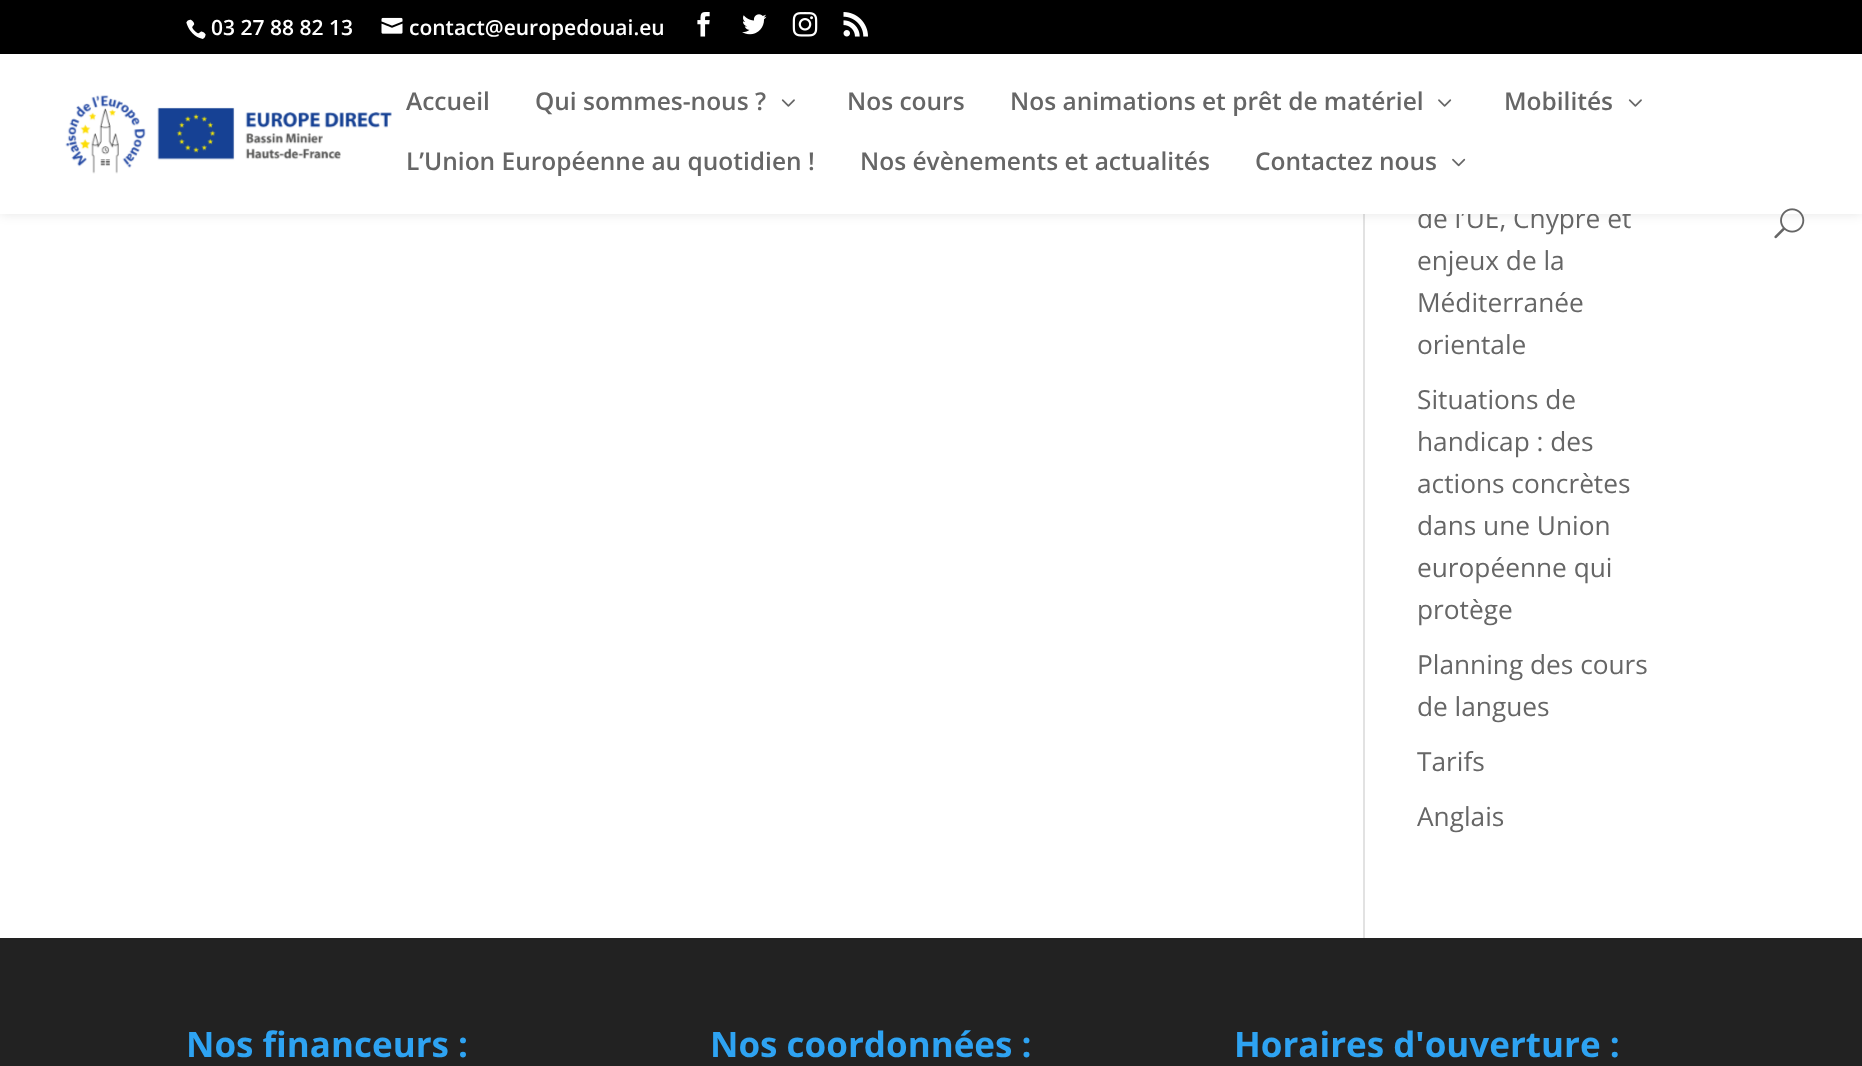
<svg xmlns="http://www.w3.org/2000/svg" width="1862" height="1066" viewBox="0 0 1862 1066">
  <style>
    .t1 { font: 600 21px Open Sans; fill: #fff; }
    .t2 { font: 26.25px Open Sans; fill: #666; }
    .t3 { font: 600 24.5px Open Sans; fill: #666; }
    .t4 { font: bold 35px Open Sans; fill: #2ea3f2; }
  </style>
  <rect width="100%" height="100%" fill="#fff"/>
  <rect x="1363" y="214" width="2" height="724" fill="#e2e2e2"/>
  <rect x="0" y="54" width="1862" height="160" fill="#0000001a" filter="blur(6px)"/>
  <rect x="0" y="0" width="1862" height="54" fill="#000"/>
  <image x="186" y="19" width="20" height="20" href="images/1.png"/>
  <text x="211" y="35" class="t1">03 27 88 82 13</text>
  <image x="381" y="17" width="22" height="17" href="images/2.png"/>
  <text x="409" y="35" class="t1">contact@europedouai.eu</text>
  <image x="697" y="12" width="13" height="25" href="images/3.png"/>
  <image x="742" y="14" width="25" height="21" href="images/4.png"/>
  <image x="792" y="12" width="26" height="25" href="images/5.png"/>
  <image x="843" y="12" width="25" height="25" href="images/6.png"/>
  <text x="1417" y="228" class="t2">de l’UE, Chypre et</text>
  <rect x="0" y="54" width="1862" height="160" fill="#fff"/>
  <image x="65" y="95" width="327" height="79" href="images/7.png"/>
  <text x="406" y="110" class="t3">Accueil</text>
  <text x="535" y="110" class="t3">Qui sommes-nous ?</text>
  <image x="781" y="99" width="14" height="8" href="images/8.png"/>
  <text x="847" y="110" class="t3">Nos cours</text>
  <text x="1010" y="110" class="t3">Nos animations et prêt de matériel</text>
  <image x="1438" y="99" width="14" height="8" href="images/9.png"/>
  <text x="1504" y="110" class="t3">Mobilités</text>
  <image x="1628" y="99" width="14" height="8" href="images/8.png"/>
  <text x="406" y="170" class="t3">L’Union Européenne au quotidien !</text>
  <text x="860" y="170" class="t3">Nos évènements et actualités</text>
  <text x="1255" y="170" class="t3">Contactez nous</text>
  <image x="1452" y="158" width="14" height="9" href="images/10.png"/>
  <image x="1774" y="208" width="31" height="31" href="images/11.png"/>
  <text x="1417" y="270" class="t2">enjeux de la</text>
  <text x="1417" y="312" class="t2">Méditerranée</text>
  <text x="1417" y="354" class="t2">orientale</text>
  <text x="1417" y="409" class="t2">Situations de</text>
  <text x="1417" y="451" class="t2">handicap : des</text>
  <text x="1417" y="493" class="t2">actions concrètes</text>
  <text x="1417" y="535" class="t2">dans une Union</text>
  <text x="1417" y="577" class="t2">européenne qui</text>
  <text x="1417" y="619" class="t2">protège</text>
  <text x="1417" y="674" class="t2">Planning des cours</text>
  <text x="1417" y="716" class="t2">de langues</text>
  <text x="1417" y="771" class="t2">Tarifs</text>
  <text x="1417" y="826" class="t2">Anglais</text>
  <rect x="0" y="938" width="1862" height="128" fill="#222"/>
  <text x="186" y="1057" class="t4">Nos financeurs :</text>
  <text x="710" y="1057" class="t4">Nos coordonnées :</text>
  <text x="1234" y="1057" class="t4">Horaires d'ouverture :</text>
</svg>
